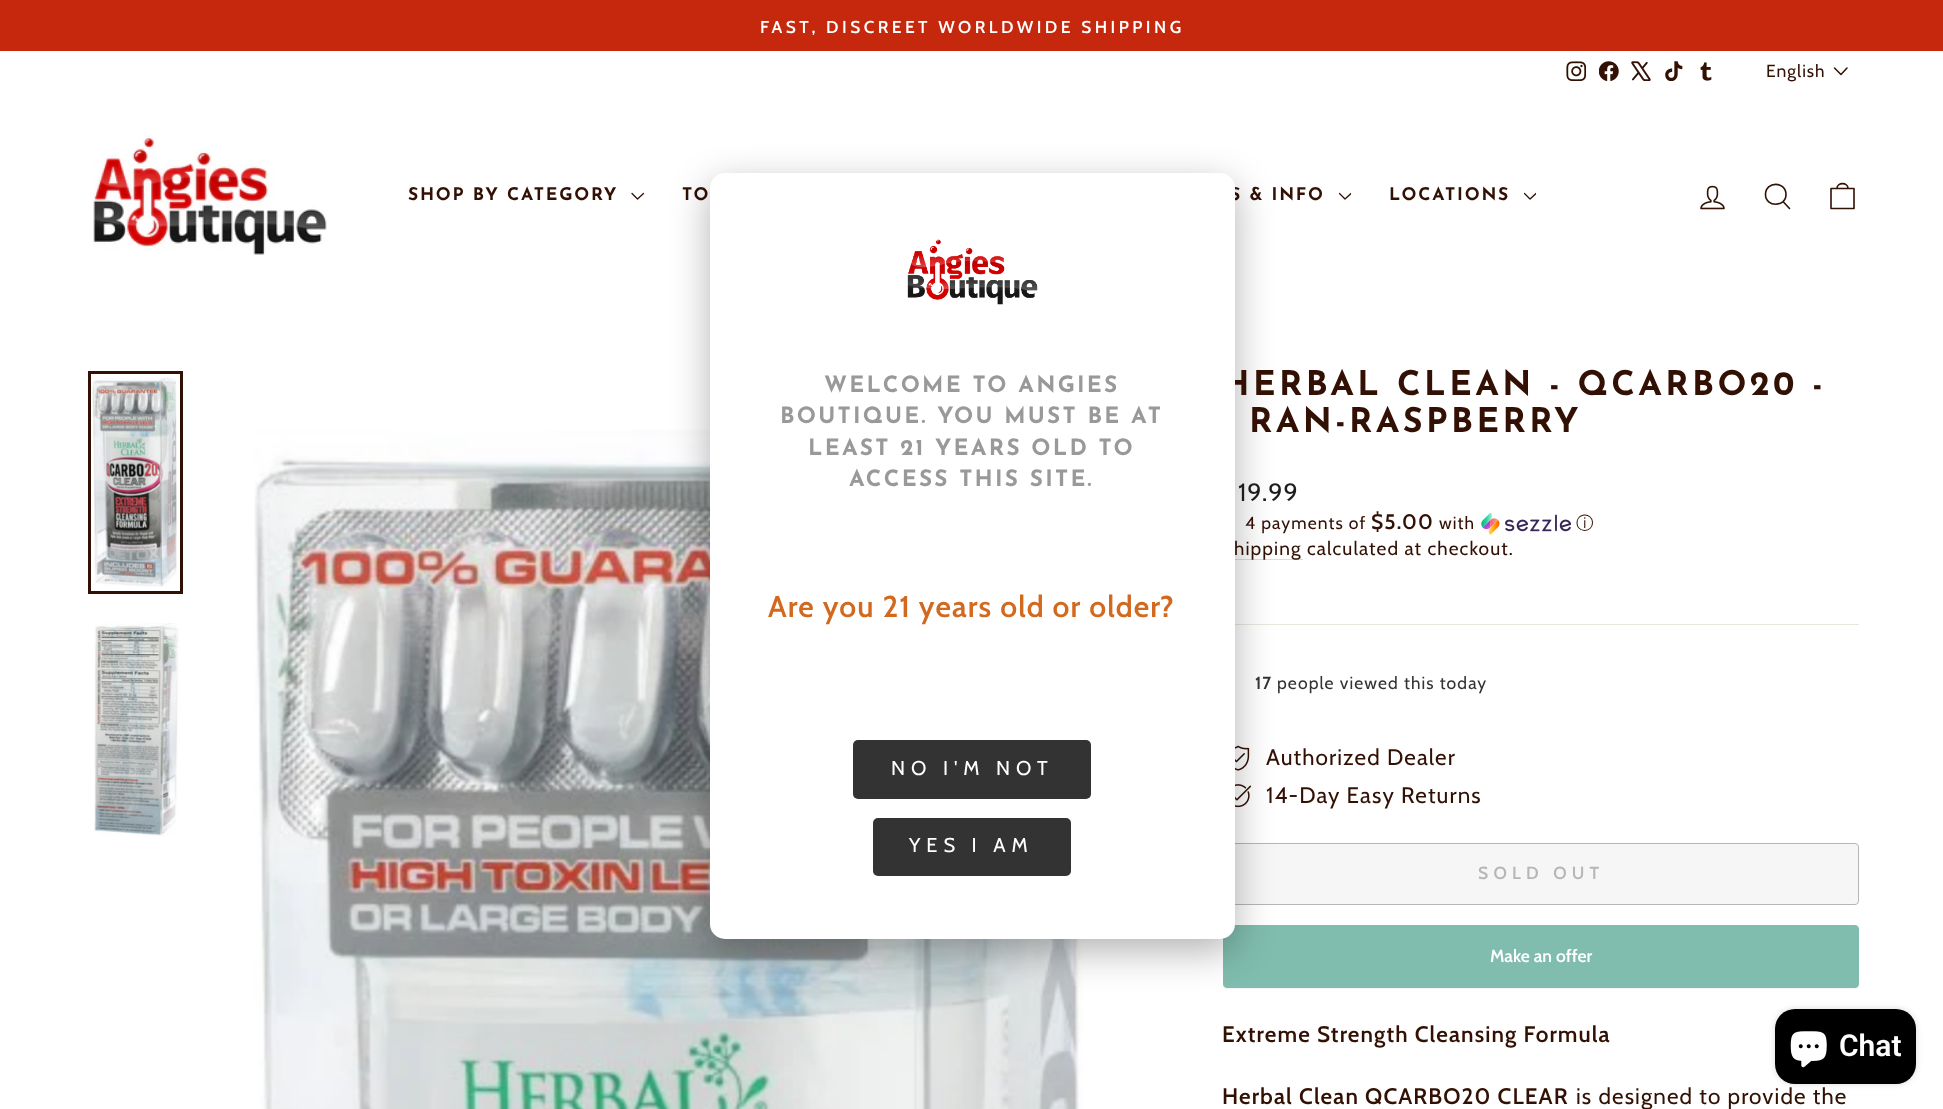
<svg xmlns="http://www.w3.org/2000/svg" width="1943" height="1109" viewBox="0 0 1943 1109">
  <style>
    .t1 { font: 600 17.25px Cabin; letter-spacing: 3.45px; fill: #fff; }
    .t2 { font: 17.5px Cabin; letter-spacing: 1px; fill: #321004; }
    .t3 { font: bold 17.5px Josefin Sans; letter-spacing: 1.75px; fill: #321004; }
    .t4 { font: bold 34px Josefin Sans; letter-spacing: 3.4px; fill: #321004; }
    .t5 { font: bold 22.5px Josefin Sans; letter-spacing: 2.25px; fill: #999; }
    .t6 { font: 600 30px Cabin; letter-spacing: 1.1px; fill: #d2691e; }
    .t7 { font: 20px Cabin; letter-spacing: 6px; fill: #fff; }
    .t8 { font: 25px Cabin; letter-spacing: 1.1px; fill: #1c1d1d; }
    .t9 { font: 17.5px Cabin; letter-spacing: 1.1px; fill: #321004; }
    .t10 { font: 600 21px Cabin; letter-spacing: 1.1px; fill: #321004; }
    .t11 { font: 500 17.5px WenQuanYi Zen Hei; letter-spacing: 1.1px; fill: #321004; }
    .t12 { font: 19.1px Cabin; letter-spacing: 1.1px; fill: #321004; }
    .t13 { font: 600 17.5px Cabin; letter-spacing: 1.1px; fill: #333; }
    .t14 { font: 17.5px Cabin; letter-spacing: 1.1px; fill: #333; }
    .t15 { font: 22.5px Cabin; letter-spacing: 1.1px; fill: #321004; }
    .t16 { font: 600 17.5px Cabin; letter-spacing: 5.25px; fill: #b6b6b6; }
    .t17 { font: 600 17.5px Cabin; fill: #fff; }
    .t18 { font: 600 22.5px Cabin; letter-spacing: 1.1px; fill: #321004; }
    .t19 { font: 600 30px Roboto; fill: #fff; }
  </style>
  <defs>
    <clipPath id="clip1"><rect x="1339" y="190" width="12" height="13"/></clipPath>
    <clipPath id="clip2"><rect x="1524" y="190" width="12" height="13"/></clipPath>
  </defs>
  <rect width="100%" height="100%" fill="#fff"/>
  <rect x="0" y="0" width="1943" height="51" fill="#c5280c"/>
  <text x="760" y="33" class="t1">FAST, DISCREET WORLDWIDE SHIPPING</text>
  <image x="1566" y="61" width="20" height="20" href="images/1.png"/>
  <image x="1599" y="61" width="20" height="20" href="images/2.png"/>
  <image x="1631" y="61" width="20" height="20" href="images/3.png"/>
  <image x="1665" y="61" width="18" height="20" href="images/4.png"/>
  <image x="1700" y="62" width="12" height="19" href="images/5.png"/>
  <text x="1766" y="77" class="t2">English</text>
  <path d="M1834.5 68L1841 74.5L1847 68" fill="none" stroke="#321004" stroke-width="1.5" stroke-linecap="round" stroke-linejoin="round"/>
  <rect x="0" y="91" width="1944" height="209" fill="#00000033" filter="blur(0.5px)"/>
  <rect x="0" y="91" width="1943" height="209" fill="#fff"/>
  <image x="93" y="134" width="234" height="121" href="images/6.png"/>
  <text x="408" y="200" class="t3">SHOP BY CATEGORY</text>
  <path d="M632 193.5L637.5 199L643.5 193.5" fill="none" stroke="#321004" stroke-width="1.3" stroke-linecap="round" stroke-linejoin="round"/>
  <text x="682" y="200" class="t3">TO</text>
  <text x="1230" y="200" class="t3">S &amp; INFO</text>
  <g clip-path="url(#clip1)">
    <path d="M1339.5 193.5L1345 199L1351 193.5" fill="none" stroke="#321004" stroke-width="1.3" stroke-linecap="round" stroke-linejoin="round"/>
  </g>
  <text x="1389" y="200" class="t3">LOCATIONS</text>
  <g clip-path="url(#clip2)">
    <path d="M1524.5 193.5L1530 199L1536 193.5" fill="none" stroke="#321004" stroke-width="1.3" stroke-linecap="round" stroke-linejoin="round"/>
  </g>
  <image x="1700" y="185" width="25" height="25" href="images/7.png"/>
  <path d="M1786 194.5C1786 207.5 1765.5 207.5 1765.5 194.5C1765.5 181 1786 181 1786 194.5ZM1789.5 208.5L1783 201.5" fill="none" stroke="#321004" stroke-width="1.6" stroke-linecap="round" stroke-linejoin="round"/>
  <path d="M1831 188.5H1854V208.5H1831ZM1837 188.5C1837 182 1848 182 1848 188.5" fill="none" stroke="#321004" stroke-width="1.6" stroke-linecap="round" stroke-linejoin="round"/>
  <image x="254" y="430" width="829" height="679" href="images/11.png"/>
  <rect x="1235" y="559" width="68" height="1" fill="#e0dbd9"/>
  <rect x="1235" y="624" width="624" height="1" fill="#e8e8e1"/>
  <image x="1235" y="745" width="15" height="26" href="images/13.png"/>
  <image x="1235" y="784" width="17" height="24" href="images/14.png"/>
  <rect x="1223.5" y="843.5" width="635" height="61" rx="3.5" fill="#f6f6f6" stroke="#b6b6b6"/>
  <rect x="1223" y="926" width="636" height="63" rx="4" fill="#8f90921a" filter="blur(0.5px)"/>
  <rect x="1223.5" y="925.5" width="635" height="62" rx="3.5" fill="#80bdae" stroke="#80bdae"/>
  <rect x="710" y="185" width="525" height="766" rx="15" fill="#0000004d" filter="blur(19px)"/>
  <text x="1222" y="395" class="t4">HERBAL CLEAN - QCARBO20 -</text>
  <rect x="710" y="173" width="525" height="766" rx="15" fill="#fff"/>
  <image x="907" y="239" width="131" height="66" href="images/8.png"/>
  <text x="824" y="392" class="t5">WELCOME TO ANGIES</text>
  <text x="780" y="423" class="t5">BOUTIQUE. YOU MUST BE AT</text>
  <text x="808" y="455" class="t5">LEAST 21 YEARS OLD TO</text>
  <text x="849" y="486" class="t5">ACCESS THIS SITE.</text>
  <text x="768" y="617" class="t6">Are you 21 years old or older?</text>
  <rect x="853" y="740" width="238" height="59" rx="5" fill="#333"/>
  <text x="891" y="775" class="t7">NO I'M NOT</text>
  <rect x="873" y="818" width="198" height="58" rx="5" fill="#333"/>
  <text x="909" y="852" class="t7">YES I AM</text>
  <image x="92" y="377" width="85" height="210" href="images/9.png"/>
  <rect x="89.5" y="372.5" width="92" height="220" fill="none" stroke="#321004" stroke-width="3"/>
  <image x="94" y="623" width="86" height="214" href="images/10.png"/>
  <text x="1249" y="432" class="t4">RAN-RASPBERRY</text>
  <text x="1238" y="501" class="t8">19.99</text>
  <text x="1245" y="529" class="t9">4 payments of</text>
  <text x="1371" y="529" class="t10">$5.00</text>
  <text x="1439" y="529" class="t9">with</text>
  <image x="1481" y="513" width="90" height="22" href="images/12.png"/>
  <text x="1576" y="529" class="t11">ⓘ</text>
  <text x="1234" y="555" class="t12">hipping calculated at checkout.</text>
  <text x="1255" y="689" class="t13">17</text>
  <text x="1277" y="689" class="t14">people viewed this today</text>
  <text x="1266" y="765" class="t15">Authorized Dealer</text>
  <text x="1266" y="803" class="t15">14-Day Easy Returns</text>
  <text x="1478" y="879" class="t16">SOLD OUT</text>
  <text x="1490" y="962" class="t17">Make an offer</text>
  <text x="1222" y="1042" class="t18">Extreme Strength Cleansing Formula</text>
  <text x="1222" y="1104" class="t18">Herbal Clean QCARBO20 CLEAR</text>
  <text x="1576" y="1104" class="t15">is designed to provide the</text>
  <rect x="1775" y="1009" width="141" height="75" rx="20" fill="#00000026" filter="blur(3px)"/>
  <rect x="1775" y="1009" width="141" height="75" rx="20" fill="#000"/>
  <image x="1790" y="1031" width="37" height="37" href="images/15.png"/>
  <text x="1839" y="1056" class="t19">Chat</text>
</svg>
